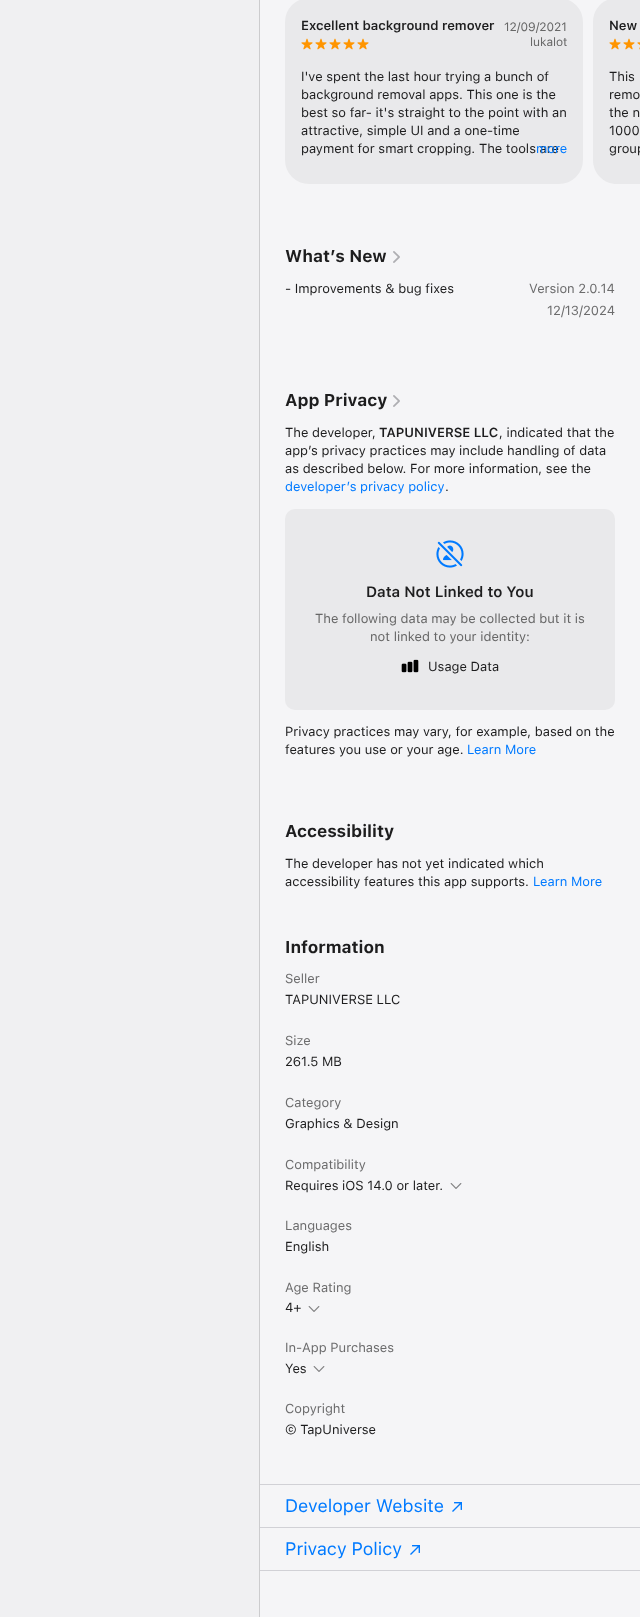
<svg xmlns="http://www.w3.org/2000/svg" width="640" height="1617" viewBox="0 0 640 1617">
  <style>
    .t1 { font: 600 13px SF; fill: #1d1d1e; }
    .t2 { font: 12px SF; fill: #676767; }
    .t3 { font: 13px SF; fill: #1d1d1e; }
    .t4 { font: 13px SF; fill: #007aff; }
    .t5 { font: bold 17px SF; fill: #1d1d1e; }
    .t6 { font: 13px SF; fill: #6c6c6d; }
    .t7 { font: 600 15px SF; fill: #1d1d1e; }
    .t8 { font: 13px SF; fill: #676767; }
    .t9 { font: 18px 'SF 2'; fill: #007aff; }
  </style>
  <rect width="100%" height="100%" fill="#f5f5f7"/>
  <rect x="0" y="0" width="259" height="1617" fill="#f0f0f2"/>
  <rect x="259" y="0" width="1" height="1617" fill="#ccccce"/>
  <rect x="285" y="-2" width="298" height="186" rx="24" fill="#e9e9eb"/>
  <text x="301" y="30" class="t1">Excellent background remover</text>
  <image x="301" y="38" width="12" height="12" href="images/1.png"/>
  <image x="315" y="38" width="12" height="12" href="images/1.png"/>
  <image x="329" y="38" width="12" height="12" href="images/1.png"/>
  <image x="343" y="38" width="12" height="12" href="images/1.png"/>
  <image x="357" y="38" width="12" height="12" href="images/1.png"/>
  <text x="504" y="31" class="t2">12/09/2021</text>
  <text x="530" y="46" class="t2">lukalot</text>
  <text x="301" y="81" class="t3">I've spent the last hour trying a bunch of</text>
  <text x="301" y="99" class="t3">background removal apps. This one is the</text>
  <text x="301" y="117" class="t3">best so far- it's straight to the point with an</text>
  <text x="301" y="135" class="t3">attractive, simple UI and a one-time</text>
  <text x="301" y="153" class="t3">payment for smart cropping. The tools are</text>
  <text x="536" y="153" class="t4">more</text>
  <path d="M617-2H640V184H617C603.5 184 593 173.5 593 160V22C593 8.5 603.5-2 617-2Z" fill="#e9e9eb"/>
  <text x="609" y="30" class="t1">New</text>
  <image x="609" y="38" width="12" height="12" href="images/1.png"/>
  <image x="623" y="38" width="12" height="12" href="images/1.png"/>
  <image x="637" y="42" width="3" height="8" href="images/2.png"/>
  <text x="609" y="81" class="t3">This</text>
  <text x="609" y="99" class="t3">remo</text>
  <text x="609" y="117" class="t3">the n</text>
  <text x="609" y="135" class="t3">1000</text>
  <text x="609" y="153" class="t3">group</text>
  <text x="285" y="262" class="t5">What’s New</text>
  <image x="393" y="251" width="7" height="12" href="images/3.png"/>
  <text x="285" y="293" class="t3">- Improvements &amp; bug fixes</text>
  <text x="529" y="293" class="t6">Version 2.0.14</text>
  <text x="547" y="315" class="t6">12/13/2024</text>
  <text x="285" y="406" class="t5">App Privacy</text>
  <image x="393" y="395" width="7" height="12" href="images/3.png"/>
  <text x="285" y="437" class="t3">The developer,</text>
  <text x="379" y="437" class="t1">TAPUNIVERSE LLC</text>
  <text x="499" y="437" class="t3">, indicated that the</text>
  <text x="285" y="455" class="t3">app’s privacy practices may include handling of data</text>
  <text x="285" y="473" class="t3">as described below. For more information, see the</text>
  <text x="285" y="491" class="t4">developer’s privacy policy</text>
  <text x="445" y="491" class="t3">.</text>
  <rect x="285" y="509" width="330" height="201" rx="10" fill="#e9e9eb"/>
  <image x="436" y="540" width="28" height="28" href="images/4.png"/>
  <text x="366" y="597" class="t7">Data Not Linked to You</text>
  <text x="315" y="623" class="t8">The following data may be collected but it is</text>
  <text x="370" y="641" class="t8">not linked to your identity:</text>
  <image x="401" y="659" width="18" height="14" href="images/5.png"/>
  <text x="428" y="671" class="t3">Usage Data</text>
  <text x="285" y="736" class="t3">Privacy practices may vary, for example, based on the</text>
  <text x="285" y="754" class="t3">features you use or your age.</text>
  <text x="467" y="754" class="t4">Learn More</text>
  <text x="285" y="837" class="t5">Accessibility</text>
  <text x="285" y="868" class="t3">The developer has not yet indicated which</text>
  <text x="285" y="886" class="t3">accessibility features this app supports.</text>
  <text x="533" y="886" class="t4">Learn More</text>
  <text x="285" y="953" class="t5">Information</text>
  <text x="285" y="983" class="t6">Seller</text>
  <text x="285" y="1004" class="t3">TAPUNIVERSE LLC</text>
  <text x="285" y="1045" class="t6">Size</text>
  <text x="285" y="1066" class="t3">261.5 MB</text>
  <text x="285" y="1107" class="t6">Category</text>
  <text x="285" y="1128" class="t3">Graphics &amp; Design</text>
  <text x="285" y="1169" class="t6">Compatibility</text>
  <text x="285" y="1190" class="t3">Requires iOS 14.0 or later.</text>
  <image x="450" y="1183" width="12" height="6" href="images/6.png"/>
  <text x="285" y="1230" class="t6">Languages</text>
  <text x="285" y="1251" class="t3">English</text>
  <text x="285" y="1292" class="t6">Age Rating</text>
  <text x="285" y="1312" class="t3">4+</text>
  <image x="308" y="1306" width="12" height="6" href="images/6.png"/>
  <text x="285" y="1352" class="t6">In-App Purchases</text>
  <text x="285" y="1373" class="t3">Yes</text>
  <image x="313" y="1366" width="12" height="6" href="images/6.png"/>
  <text x="285" y="1413" class="t6">Copyright</text>
  <text x="285" y="1434" class="t3">© TapUniverse</text>
  <rect x="260" y="1484" width="380" height="1" fill="#d1d1d6"/>
  <rect x="260" y="1527" width="380" height="1" fill="#d1d1d6"/>
  <text x="285" y="1512" class="t9">Developer Website</text>
  <image x="452" y="1502" width="10" height="10" href="images/7.png"/>
  <rect x="260" y="1570" width="380" height="1" fill="#d1d1d6"/>
  <text x="285" y="1555" class="t9">Privacy Policy</text>
  <image x="410" y="1545" width="10" height="10" href="images/7.png"/>
</svg>
